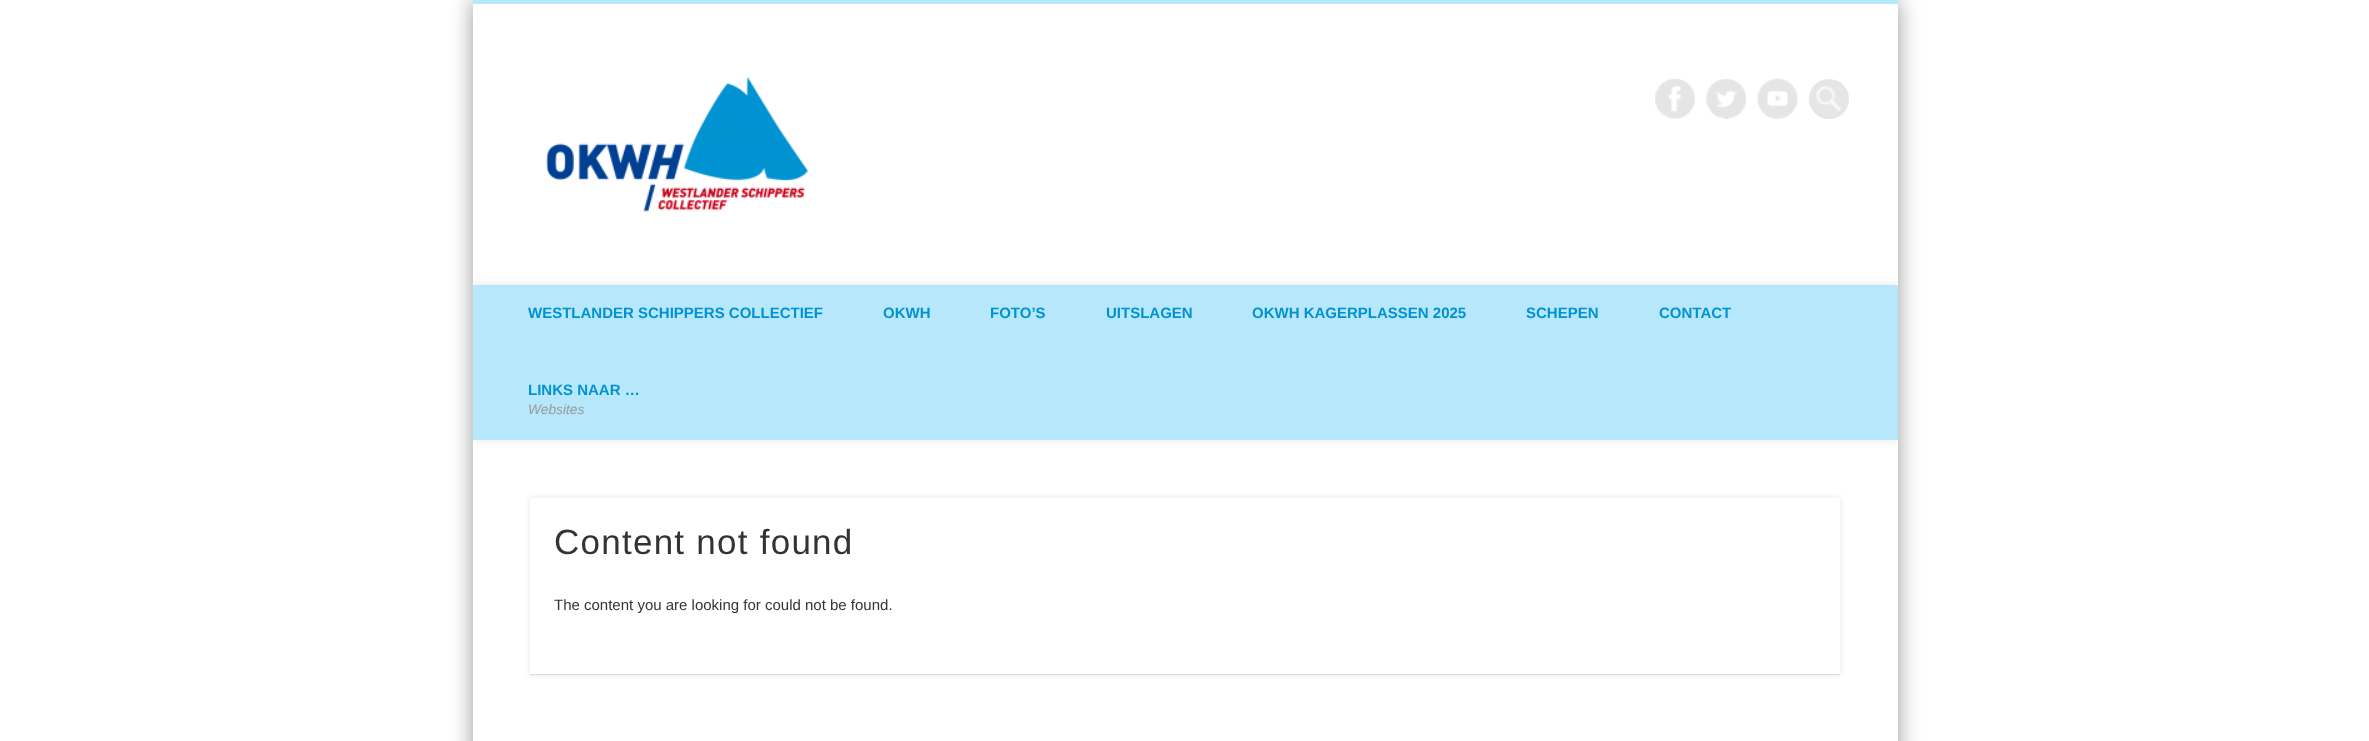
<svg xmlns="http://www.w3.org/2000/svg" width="2369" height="741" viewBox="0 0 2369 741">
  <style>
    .t1 { font: bold 15px Liberation Sans; fill: #0092d1; }
    .t2 { font: italic 13.75px Liberation Sans; fill: #999; }
    .t3 { font: 35px Liberation Sans; letter-spacing: 1.25px; fill: #333; }
    .t4 { font: 15px Liberation Sans; fill: #333; }
  </style>
  <defs>
    <clipPath id="clip1"><rect x="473" y="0" width="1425" height="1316"/></clipPath>
    <clipPath id="clip2"><path d="M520 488H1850V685H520ZM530 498H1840V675H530Z" clip-rule="evenodd"/></clipPath>
  </defs>
  <rect width="100%" height="100%" fill="#fff"/>
  <rect x="473" y="0" width="1425" height="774" fill="#00000066" filter="blur(11px)"/>
  <rect x="473" y="4" width="1425" height="737" fill="#fff"/>
  <rect x="473" y="0" width="1425" height="4" fill="#b7e7fa"/>
  <image x="546" y="76" width="263" height="136" href="images/1.png"/>
  <image x="1655" y="78" width="40" height="41" href="images/2.png"/>
  <image x="1706" y="79" width="40" height="40" href="images/3.png"/>
  <image x="1757" y="78" width="41" height="41" href="images/4.png"/>
  <circle cx="1829" cy="99" r="20" fill="#e6e6e6"/>
  <image x="1816" y="86" width="25" height="25" href="images/5.png"/>
  <g clip-path="url(#clip1)">
    <rect x="473" y="285" width="1425" height="155" fill="#0000001a" filter="blur(4.5px)"/>
  </g>
  <rect x="473" y="285" width="1425" height="155" fill="#b7e7fa"/>
  <text x="528" y="318" class="t1">WESTLANDER SCHIPPERS COLLECTIEF</text>
  <text x="883" y="318" class="t1">OKWH</text>
  <text x="990" y="318" class="t1">FOTO’S</text>
  <text x="1106" y="318" class="t1">UITSLAGEN</text>
  <text x="1252" y="318" class="t1">OKWH KAGERPLASSEN 2025</text>
  <text x="1526" y="318" class="t1">SCHEPEN</text>
  <text x="1659" y="318" class="t1">CONTACT</text>
  <text x="528" y="395" class="t1">LINKS NAAR …</text>
  <text x="528" y="414" class="t2">Websites</text>
  <g clip-path="url(#clip2)">
    <rect x="530" y="498" width="1310" height="177" fill="#0000001a" filter="blur(3px)"/>
  </g>
  <rect x="530" y="674" width="1310" height="1" fill="#dedede"/>
  <text x="554" y="554" class="t3">Content not found</text>
  <text x="554" y="610" class="t4">The content you are looking for could not be found.</text>
</svg>
